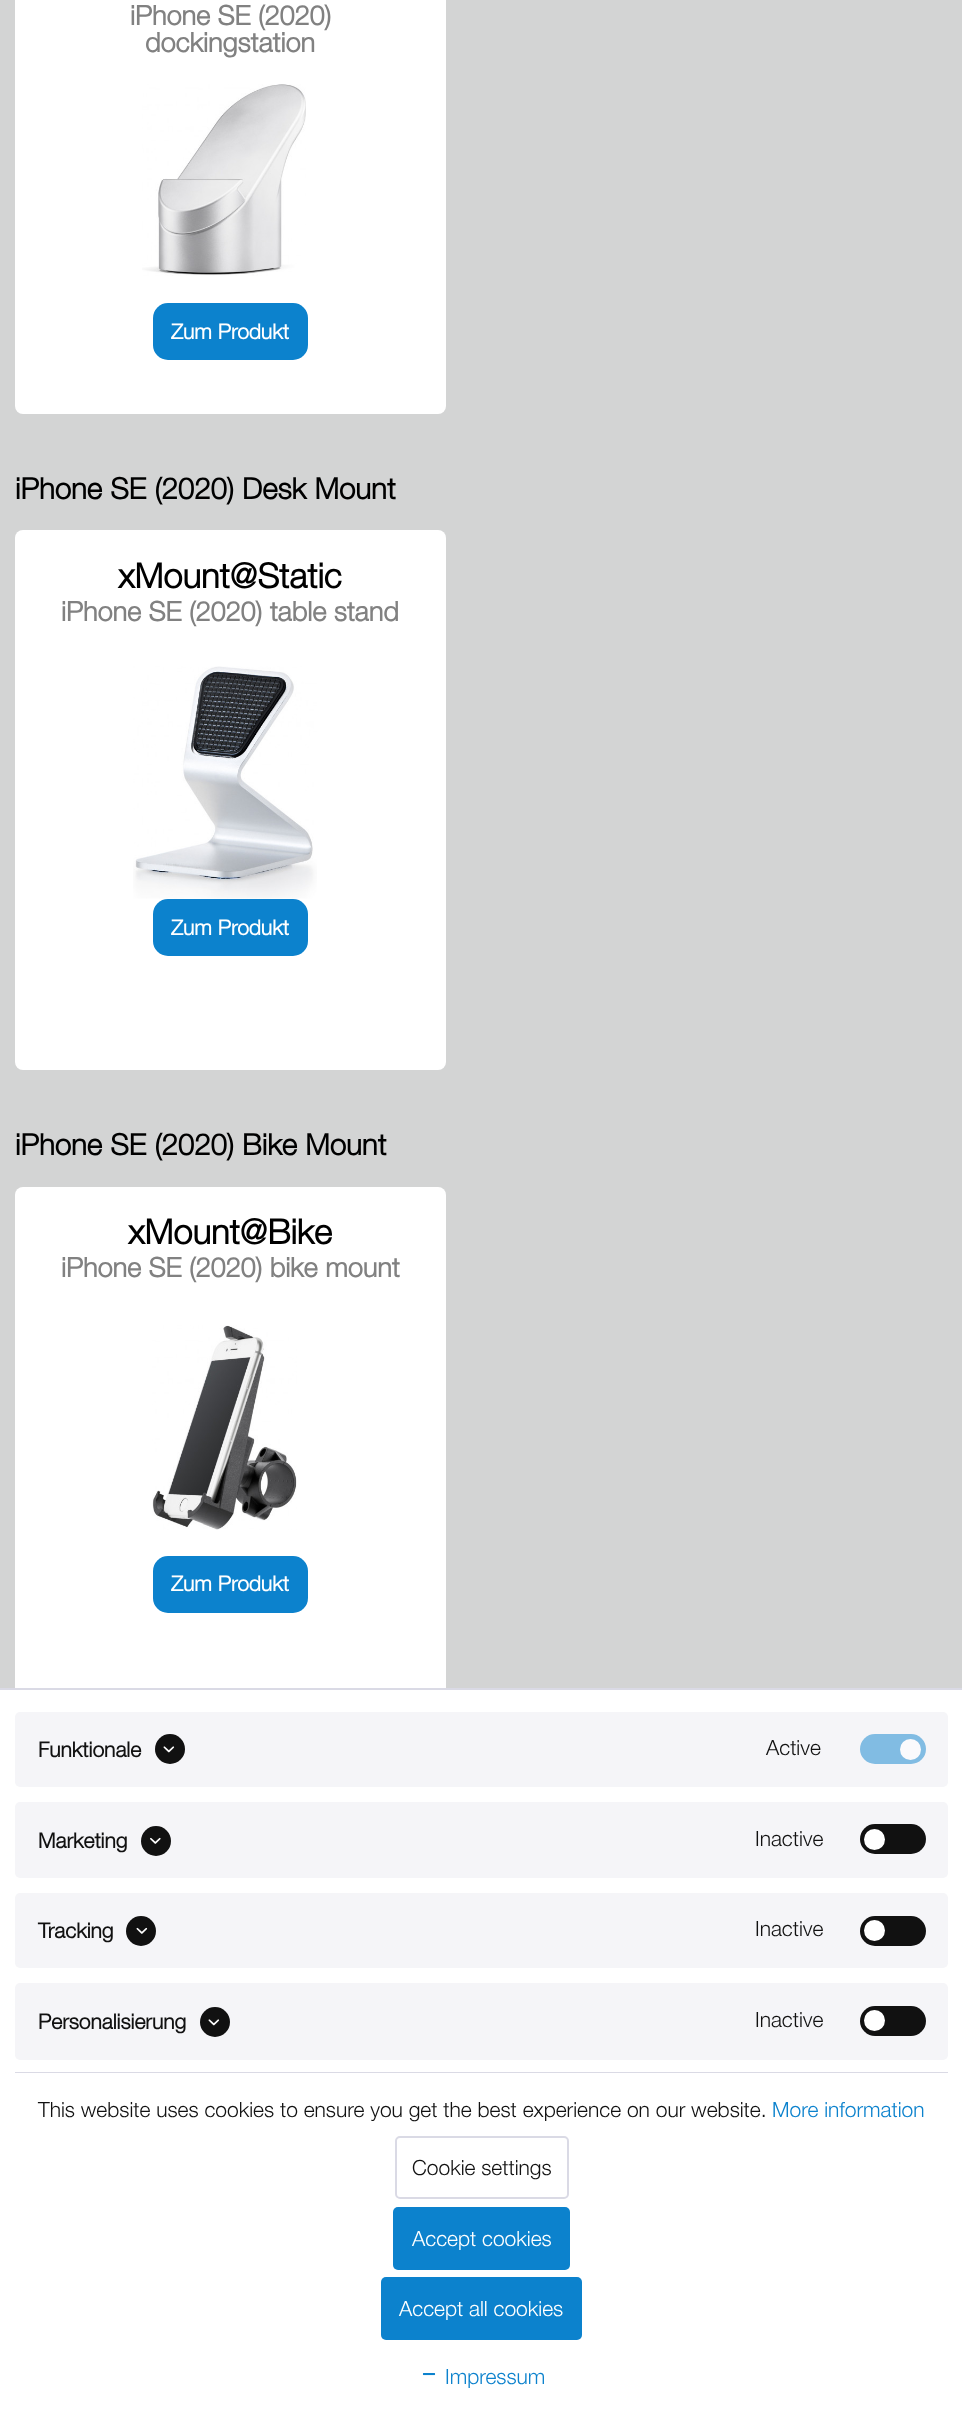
<svg xmlns="http://www.w3.org/2000/svg" width="962" height="2418" viewBox="0 0 962 2418">
  <style>
    .t1 { font: bold 27px 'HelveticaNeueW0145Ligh'; fill: #818181; }
    .t2 { font: bold 21px 'HelveticaNeueW0145Ligh'; fill: #fff; }
    .t3 { font: bold 29.4px 'HelveticaNeueW0145Ligh'; fill: #000; }
    .t4 { font: bold 34.5px 'HelveticaNeueW0145Ligh'; fill: #000; }
    .t5 { font: bold 21px 'HelveticaNeueW0145Ligh'; fill: #111; }
    .t6 { font: 300 21px 'HelveticaNeueW0145Ligh'; fill: #111; }
    .t7 { font: 300 21px 'HelveticaNeueW0145Ligh'; fill: #0c82cd; }
    .t8 { font: 300 21px 'HelveticaNeueW0145Ligh'; fill: #fff; }
  </style>
  <rect width="100%" height="100%" fill="#d3d4d4"/>
  <rect x="15" y="-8" width="431" height="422" rx="8" fill="#fff"/>
  <text x="130" y="25" class="t1">iPhone SE (2020)</text>
  <text x="145" y="52" class="t1">dockingstation</text>
  <image x="142" y="84" width="164" height="192" href="images/1.png"/>
  <rect x="153" y="303" width="155" height="57" rx="15" fill="#0c82cd"/>
  <text x="171" y="339" class="t2">Zum Produkt</text>
  <text x="15" y="499" class="t3">iPhone SE (2020) Desk Mount</text>
  <rect x="15" y="530" width="431" height="540" rx="8" fill="#fff"/>
  <text x="118" y="588" class="t4">xMount@Static</text>
  <text x="61" y="621" class="t1">iPhone SE (2020) table stand</text>
  <image x="133" y="666" width="184" height="233" href="images/2.png"/>
  <rect x="153" y="899" width="155" height="57" rx="15" fill="#0c82cd"/>
  <text x="171" y="935" class="t2">Zum Produkt</text>
  <text x="15" y="1155" class="t3">iPhone SE (2020) Bike Mount</text>
  <rect x="15" y="1187" width="431" height="540" rx="8" fill="#fff"/>
  <text x="128" y="1244" class="t4">xMount@Bike</text>
  <text x="61" y="1277" class="t1">iPhone SE (2020) bike mount</text>
  <image x="152" y="1325" width="145" height="205" href="images/3.png"/>
  <rect x="153" y="1556" width="155" height="57" rx="15" fill="#0c82cd"/>
  <text x="171" y="1591" class="t2">Zum Produkt</text>
  <rect x="0" y="1690" width="962" height="728" fill="#fff"/>
  <rect x="0" y="1688" width="962" height="2" fill="#dadae5"/>
  <rect x="15" y="2072" width="933" height="1" fill="#dadae5"/>
  <rect x="15" y="1712" width="933" height="75" rx="5" fill="#f5f5f8"/>
  <text x="38" y="1757" class="t5">Funktionale</text>
  <circle cx="170" cy="1749" r="15" fill="#111"/>
  <image x="163" y="1746" width="12" height="7" href="images/4.png"/>
  <text x="766" y="1755" class="t6">Active</text>
  <rect x="860" y="1734" width="66" height="30" rx="15" fill="#81bce3"/>
  <circle cx="910.5" cy="1749.5" r="10.5" fill="#fafafc"/>
  <rect x="15" y="1802" width="933" height="76" rx="5" fill="#f5f5f8"/>
  <text x="38" y="1848" class="t5">Marketing</text>
  <circle cx="156" cy="1841" r="15" fill="#111"/>
  <image x="150" y="1837" width="11" height="7" href="images/5.png"/>
  <text x="755" y="1846" class="t6">Inactive</text>
  <rect x="860" y="1824" width="66" height="30" rx="15" fill="#111"/>
  <circle cx="874.5" cy="1839.5" r="10.5" fill="#fff"/>
  <rect x="15" y="1893" width="933" height="75" rx="5" fill="#f5f5f8"/>
  <text x="38" y="1938" class="t5">Tracking</text>
  <circle cx="141" cy="1931" r="15" fill="#111"/>
  <image x="136" y="1927" width="12" height="7" href="images/6.png"/>
  <text x="755" y="1936" class="t6">Inactive</text>
  <rect x="860" y="1916" width="66" height="30" rx="15" fill="#111"/>
  <circle cx="874.5" cy="1930.5" r="10.5" fill="#fff"/>
  <rect x="15" y="1983" width="933" height="77" rx="5" fill="#f5f5f8"/>
  <text x="38" y="2029" class="t5">Personalisierung</text>
  <circle cx="215" cy="2022" r="15" fill="#111"/>
  <image x="208" y="2019" width="12" height="7" href="images/4.png"/>
  <text x="755" y="2027" class="t6">Inactive</text>
  <rect x="860" y="2006" width="66" height="30" rx="15" fill="#111"/>
  <circle cx="874.5" cy="2020.5" r="10.5" fill="#fff"/>
  <text x="38" y="2117" class="t6">This website uses cookies to ensure you get the best experience on our website.</text>
  <text x="772" y="2117" class="t7">More information</text>
  <rect x="396" y="2137" width="172" height="61" rx="4" fill="none" stroke="#dadae5" stroke-width="2"/>
  <text x="412" y="2175" class="t6">Cookie settings</text>
  <rect x="393" y="2207" width="177" height="63" rx="5" fill="#0c82cd"/>
  <text x="412" y="2246" class="t8">Accept cookies</text>
  <rect x="381" y="2277" width="201" height="63" rx="5" fill="#0c82cd"/>
  <text x="399" y="2316" class="t8">Accept all cookies</text>
  <image x="422" y="2373" width="14" height="3" href="images/7.png"/>
  <text x="445" y="2384" class="t7">Impressum</text>
</svg>
